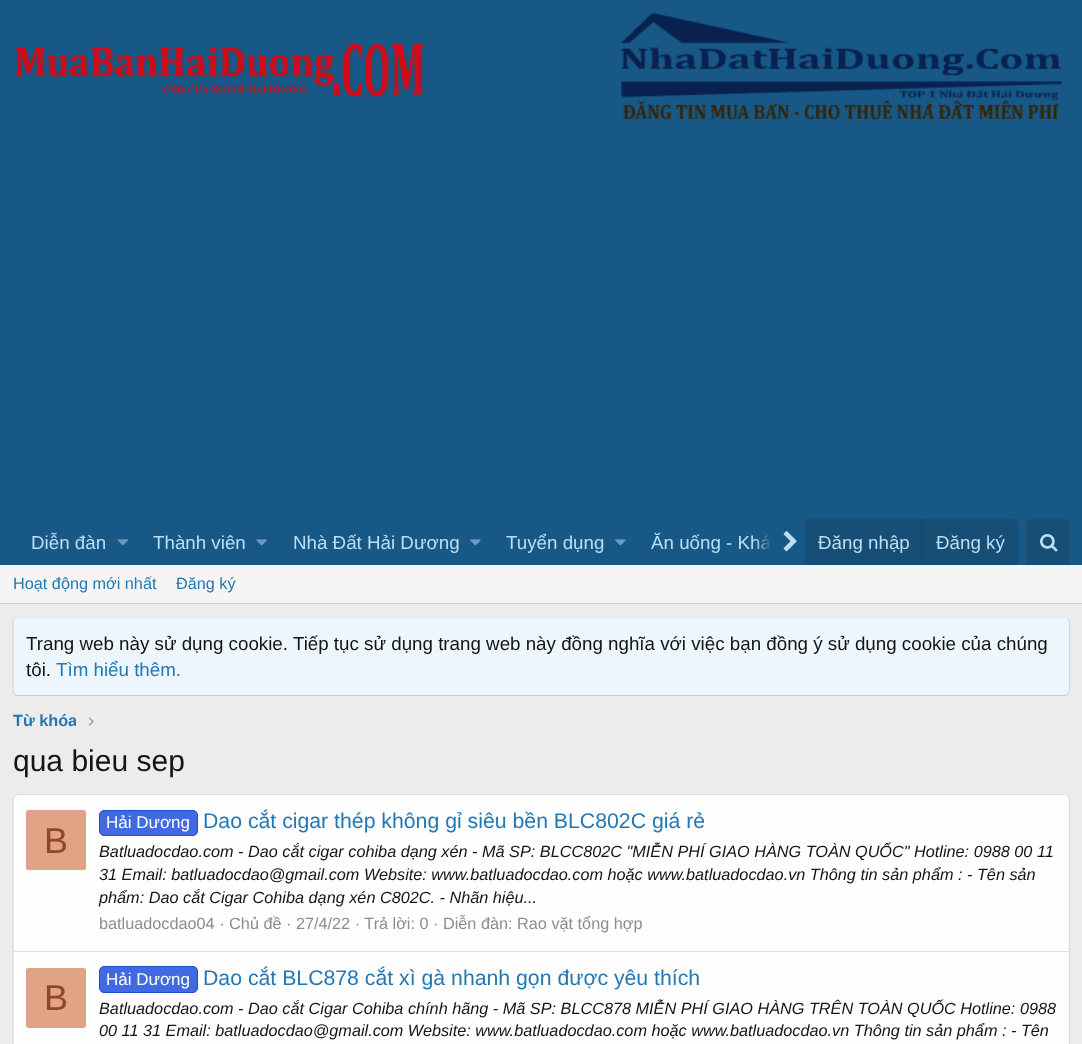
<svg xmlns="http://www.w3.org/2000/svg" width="1082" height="1044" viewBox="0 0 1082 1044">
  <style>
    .t1 { font: 18.75px Liberation Sans; fill: #bcdef5; }
    .t2 { font: 16.25px Liberation Sans; fill: #2577b1; }
    .t3 { font: 18.75px Liberation Sans; fill: #141414; }
    .t4 { font: 18.75px Liberation Sans; fill: #2577b1; }
    .t5 { font: bold 16.25px Liberation Sans; fill: #2577b1; }
    .t6 { font: 30px Liberation Sans; fill: #141414; }
    .t7 { font: 36px Liberation Sans; fill: #8f4724; }
    .t8 { font: 17px Liberation Sans; fill: #fff; }
    .t9 { font: 21.25px Liberation Sans; fill: #2577b1; }
    .t10 { font: italic 16.25px Liberation Sans; fill: #141414; }
    .t11 { font: 16.25px Liberation Sans; fill: #8c8c8c; }
  </style>
  <defs>
    <linearGradient id="g1" gradientUnits="userSpaceOnUse" x1="755" y1="542" x2="805" y2="542"><stop offset="0" stop-color="#185886" stop-opacity="0"/><stop offset="0.33" stop-color="#185886"/></linearGradient>
    <clipPath id="clip1"><rect x="13" y="709" width="63" height="25"/></clipPath>
  </defs>
  <rect width="100%" height="100%" fill="#ececec"/>
  <rect x="0" y="0" width="1082" height="565" fill="#185886"/>
  <image x="15" y="43" width="410" height="55" href="images/1.png"/>
  <image x="621" y="12" width="441" height="108" href="images/2.png"/>
  <text x="31" y="549" class="t1">Diễn đàn</text>
  <image x="117" y="539" width="12" height="7" href="images/3.png"/>
  <text x="153" y="549" class="t1">Thành viên</text>
  <image x="256" y="539" width="11" height="7" href="images/4.png"/>
  <text x="293" y="549" class="t1">Nhà Đất Hải Dương</text>
  <image x="470" y="539" width="11" height="7" href="images/5.png"/>
  <text x="506" y="549" class="t1">Tuyển dụng</text>
  <image x="615" y="539" width="11" height="7" href="images/5.png"/>
  <text x="651" y="549" class="t1">Ăn uống - Khá</text>
  <rect x="755" y="535" width="17" height="15" fill="url(#g1)"/>
  <image x="783" y="531" width="14" height="21" href="images/6.png"/>
  <path d="M810 519H1013C1016 519 1018 521 1018 524V565H805V524C805 521 807 519 810 519Z" fill="#174e75"/>
  <text x="818" y="549" class="t1">Đăng nhập</text>
  <rect x="921" y="519" width="1" height="46" fill="#174566"/>
  <text x="936" y="549" class="t1">Đăng ký</text>
  <path d="M1031 519H1065C1068 519 1070 521 1070 524V565H1026V524C1026 521 1028 519 1031 519Z" fill="#174e75"/>
  <image x="1040" y="534" width="18" height="18" href="images/7.png"/>
  <rect x="0" y="565" width="1082" height="38" fill="#f5f5f5"/>
  <rect x="0" y="603" width="1082" height="1" fill="#cbcbcb"/>
  <text x="13" y="589" class="t2">Hoạt động mới nhất</text>
  <text x="176" y="589" class="t2">Đăng ký</text>
  <rect x="13" y="616" width="1057" height="80" rx="5" fill="#edf6fd"/>
  <path d="M14.5 618L17.5 617H1065L1068 618" fill="none" stroke="#dfdfdf" stroke-width="1.2"/>
  <path d="M1068 618L1069.5 621V691.5L1068 694.5" fill="none" stroke="#d8d8d8" stroke-width="1.2"/>
  <path d="M1068 694.5L1065 695.5H17.5L14.5 694.5" fill="none" stroke="#cbcbcb" stroke-width="1.2"/>
  <path d="M14.5 694.5L13 691.5V621L14.5 618" fill="none" stroke="#d8d8d8" stroke-width="1.2"/>
  <text x="26" y="650" class="t3">Trang web này sử dụng cookie. Tiếp tục sử dụng trang web này đồng nghĩa với việc bạn đồng ý sử dụng cookie của chúng</text>
  <text x="26" y="676" class="t3">tôi.</text>
  <text x="56" y="676" class="t4">Tìm hiểu thêm.</text>
  <g clip-path="url(#clip1)">
    <text x="13" y="726" class="t5">Từ khóa</text>
  </g>
  <image x="89" y="717" width="5" height="9" href="images/8.png"/>
  <text x="13" y="771" class="t6">qua bieu sep</text>
  <rect x="13" y="794" width="1057" height="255" rx="5" fill="#fefefe"/>
  <path d="M14.5 795.5L17.5 794.5H1065L1068 795.5" fill="none" stroke="#dfdfdf" stroke-width="1.2"/>
  <path d="M1068 795.5L1069.5 799V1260L1068 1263" fill="none" stroke="#d8d8d8" stroke-width="1.2"/>
  <path d="M14.5 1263L13 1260V799L14.5 795.5" fill="none" stroke="#d8d8d8" stroke-width="1.2"/>
  <rect x="26" y="810" width="60" height="60" rx="2.5" fill="#e0a385"/>
  <text x="44" y="853" class="t7">B</text>
  <rect x="99.5" y="810.5" width="98" height="25" rx="4.5" fill="#4169e1" stroke="#214cce"/>
  <text x="106" y="828" class="t8">Hải Dương</text>
  <text x="203" y="828" class="t9">Dao cắt cigar thép không gỉ siêu bền BLC802C giá rẻ</text>
  <text x="99" y="857" class="t10">Batluadocdao.com - Dao cắt cigar cohiba dạng xén - Mã SP: BLCC802C "MIỄN PHÍ GIAO HÀNG TOÀN QUỐC" Hotline: 0988 00 11</text>
  <text x="99" y="880" class="t10">31 Email: batluadocdao@gmail.com Website: www.batluadocdao.com hoặc www.batluadocdao.vn Thông tin sản phẩm : - Tên sản</text>
  <text x="99" y="903" class="t10">phẩm: Dao cắt Cigar Cohiba dạng xén C802C. - Nhãn hiệu...</text>
  <text x="99" y="929" class="t11">batluadocdao04 · Chủ đề · 27/4/22 · Trả lời: 0 · Diễn đàn: Rao vặt tổng hợp</text>
  <rect x="14" y="951" width="1055" height="1" fill="#dfdfdf"/>
  <rect x="26" y="968" width="60" height="60" rx="2.5" fill="#e0a385"/>
  <text x="44" y="1010" class="t7">B</text>
  <rect x="99.5" y="966.5" width="98" height="26" rx="4.5" fill="#4169e1" stroke="#214cce"/>
  <text x="106" y="985" class="t8">Hải Dương</text>
  <text x="203" y="985" class="t9">Dao cắt BLC878 cắt xì gà nhanh gọn được yêu thích</text>
  <text x="99" y="1014" class="t10">Batluadocdao.com - Dao cắt Cigar Cohiba chính hãng - Mã SP: BLCC878 MIỄN PHÍ GIAO HÀNG TRÊN TOÀN QUỐC Hotline: 0988</text>
  <text x="99" y="1036" class="t10">00 11 31 Email: batluadocdao@gmail.com Website: www.batluadocdao.com hoặc www.batluadocdao.vn Thông tin sản phẩm : - Tên</text>
</svg>
